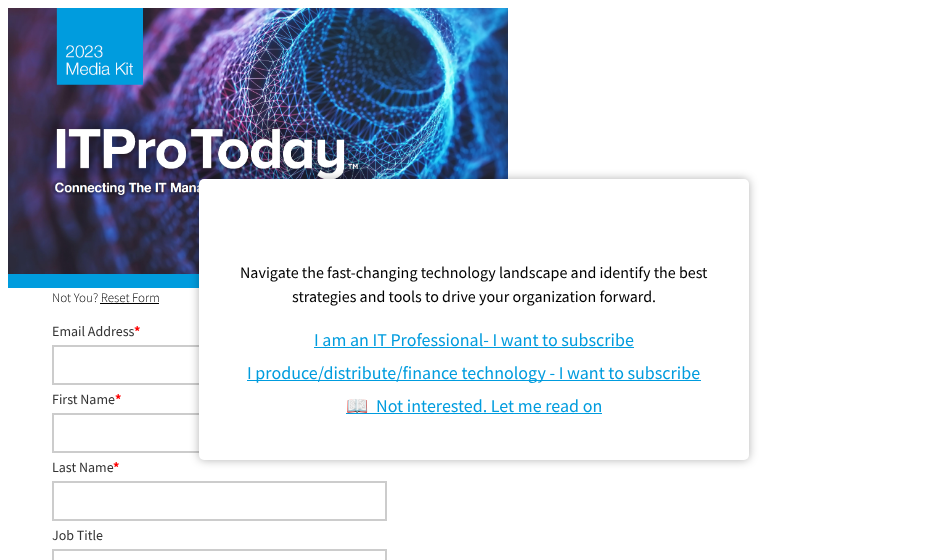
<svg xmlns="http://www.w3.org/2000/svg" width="948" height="560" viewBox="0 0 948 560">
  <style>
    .t1 { font: 300 13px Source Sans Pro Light; fill: #000; }
    .t2 { font: 14px Source Sans Pro; fill: #333; }
    .t3 { font: bold 14px Source Sans Pro; fill: #f00; }
    .t4 { font: 16px Source Sans Pro; fill: #000; }
    .t5 { font: 18px Source Sans Pro; fill: #009cde; }
    .t6 { font: 18px Noto Color Emoji; fill: #009cde; }
  </style>
  <rect width="100%" height="100%" fill="#fff"/>
  <image x="8" y="8" width="500" height="280" href="images/1.png"/>
  <text x="52" y="302" class="t1">Not You? Reset Form</text>
  <rect x="100" y="303" width="59" height="1" fill="#000"/>
  <text x="52" y="336" class="t2">Email Address</text>
  <text x="134" y="336" class="t3">*</text>
  <rect x="53" y="346" width="333" height="38" fill="none" stroke="#ccc" stroke-width="2"/>
  <text x="52" y="404" class="t2">First Name</text>
  <text x="115" y="404" class="t3">*</text>
  <rect x="53" y="414" width="333" height="38" fill="none" stroke="#ccc" stroke-width="2"/>
  <text x="52" y="472" class="t2">Last Name</text>
  <text x="113" y="472" class="t3">*</text>
  <rect x="53" y="482" width="333" height="38" fill="none" stroke="#ccc" stroke-width="2"/>
  <text x="52" y="540" class="t2">Job Title</text>
  <rect x="53" y="550" width="333" height="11" fill="none" stroke="#ccc" stroke-width="2"/>
  <rect x="199" y="179" width="550" height="281" rx="5" fill="#0000004d" filter="blur(5px)"/>
  <rect x="199" y="179" width="550" height="281" rx="5" fill="#fff"/>
  <text x="240" y="278" class="t4">Navigate the fast-changing technology landscape and identify the best</text>
  <text x="292" y="302" class="t4">strategies and tools to drive your organization forward.</text>
  <text x="314" y="346" class="t5">I am an IT Professional- I want to subscribe</text>
  <rect x="314" y="347" width="320" height="1" fill="#009cde"/>
  <rect x="247" y="380" width="454" height="1" fill="#009cde"/>
  <text x="247" y="379" class="t5">I produce/distribute/finance technology - I want to subscribe</text>
  <rect x="346" y="413" width="256" height="1" fill="#009cde"/>
  <text x="346" y="412" class="t6">📖</text>
  <text x="376" y="412" class="t5">Not interested. Let me read on</text>
</svg>
